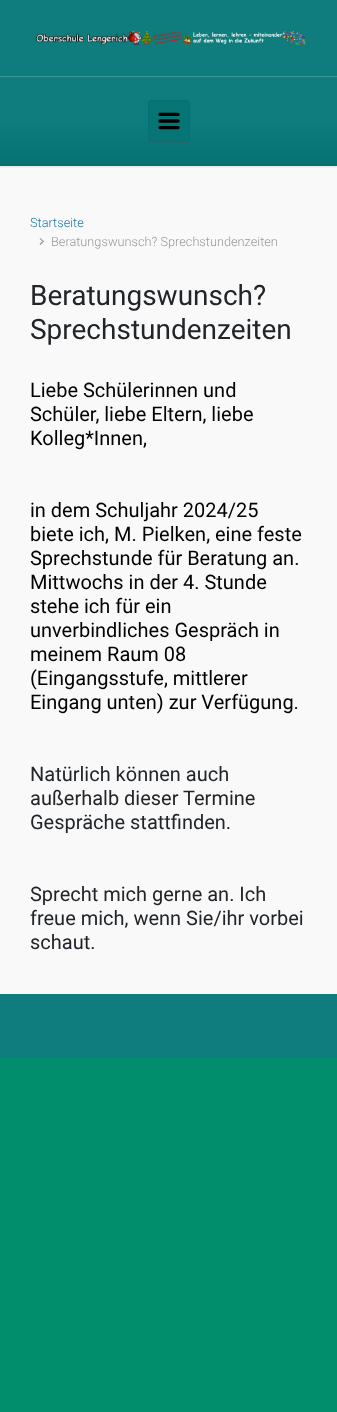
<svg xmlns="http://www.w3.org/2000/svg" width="337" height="1412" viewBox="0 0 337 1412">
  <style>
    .t1 { font: 300 12.75px Roboto; fill: #1879ad; }
    .t2 { font: 300 12.75px Roboto; fill: #999; }
    .t3 { font: 28px Roboto; fill: #212529; }
    .t4 { font: 20px Roboto; fill: #000; }
    .t5 { font: 20px Roboto; fill: #212529; }
  </style>
  <defs>
    <linearGradient id="g1" gradientUnits="userSpaceOnUse" x1="169" y1="76" x2="169" y2="166"><stop offset="0.5" stop-color="#0f7c7d"/><stop offset="1" stop-color="#037071"/></linearGradient>
  </defs>
  <rect width="100%" height="100%" fill="#008e6d"/>
  <rect x="0" y="166" width="337" height="828" fill="#f9f9f9"/>
  <rect x="0" y="0" width="337" height="76" fill="#0f7c7d"/>
  <image x="35" y="31" width="272" height="14" href="images/1.png"/>
  <rect x="0" y="77" width="337" height="90" fill="#0000001a" filter="blur(1px)"/>
  <rect x="0" y="77" width="337" height="89" fill="url(#g1)"/>
  <rect x="0" y="76" width="337" height="1" fill="#3f9697"/>
  <path d="M148 138C148 145 151 144 158 144H180C187 144 190 145 190 138C190 140 188 142 186 142H152C150 142 148 140 148 138Z" fill="#1d6e72"/>
  <rect x="148.5" y="100.5" width="41" height="41" rx="3.5" fill="#077475" stroke="#037071"/>
  <image x="158" y="112" width="22" height="18" href="images/2.png"/>
  <text x="30" y="227" class="t1">Startseite</text>
  <path d="M39.5 238.5L40.5 238L44 241.5L43 242Z" fill="#999"/>
  <path d="M39.5 244L43 240.5L44 241.5L40.5 245Z" fill="#999"/>
  <text x="51" y="246" class="t2">Beratungswunsch? Sprechstundenzeiten</text>
  <text x="30" y="305" class="t3">Beratungswunsch?</text>
  <text x="30" y="339" class="t3">Sprechstundenzeiten</text>
  <text x="30" y="397" class="t4">Liebe Schülerinnen und</text>
  <text x="30" y="421" class="t4">Schüler, liebe Eltern, liebe</text>
  <text x="30" y="445" class="t4">Kolleg*Innen,</text>
  <text x="30" y="517" class="t4">in dem Schuljahr 2024/25</text>
  <text x="30" y="541" class="t4">biete ich, M. Pielken, eine feste</text>
  <text x="30" y="565" class="t4">Sprechstunde für Beratung an.</text>
  <text x="30" y="589" class="t4">Mittwochs in der 4. Stunde</text>
  <text x="30" y="613" class="t4">stehe ich für ein</text>
  <text x="30" y="637" class="t4">unverbindliches Gespräch in</text>
  <text x="30" y="661" class="t4">meinem Raum 08</text>
  <text x="30" y="685" class="t4">(Eingangsstufe, mittlerer</text>
  <text x="30" y="709" class="t4">Eingang unten) zur Verfügung.</text>
  <text x="30" y="781" class="t5">Natürlich können auch</text>
  <text x="30" y="805" class="t5">außerhalb dieser Termine</text>
  <text x="30" y="829" class="t5">Gespräche stattfinden.</text>
  <text x="30" y="901" class="t5">Sprecht mich gerne an. Ich</text>
  <text x="30" y="925" class="t5">freue mich, wenn Sie/ihr vorbei</text>
  <text x="30" y="949" class="t5">schaut.</text>
  <rect x="0" y="994" width="337" height="64" fill="#0f7c7d"/>
</svg>
